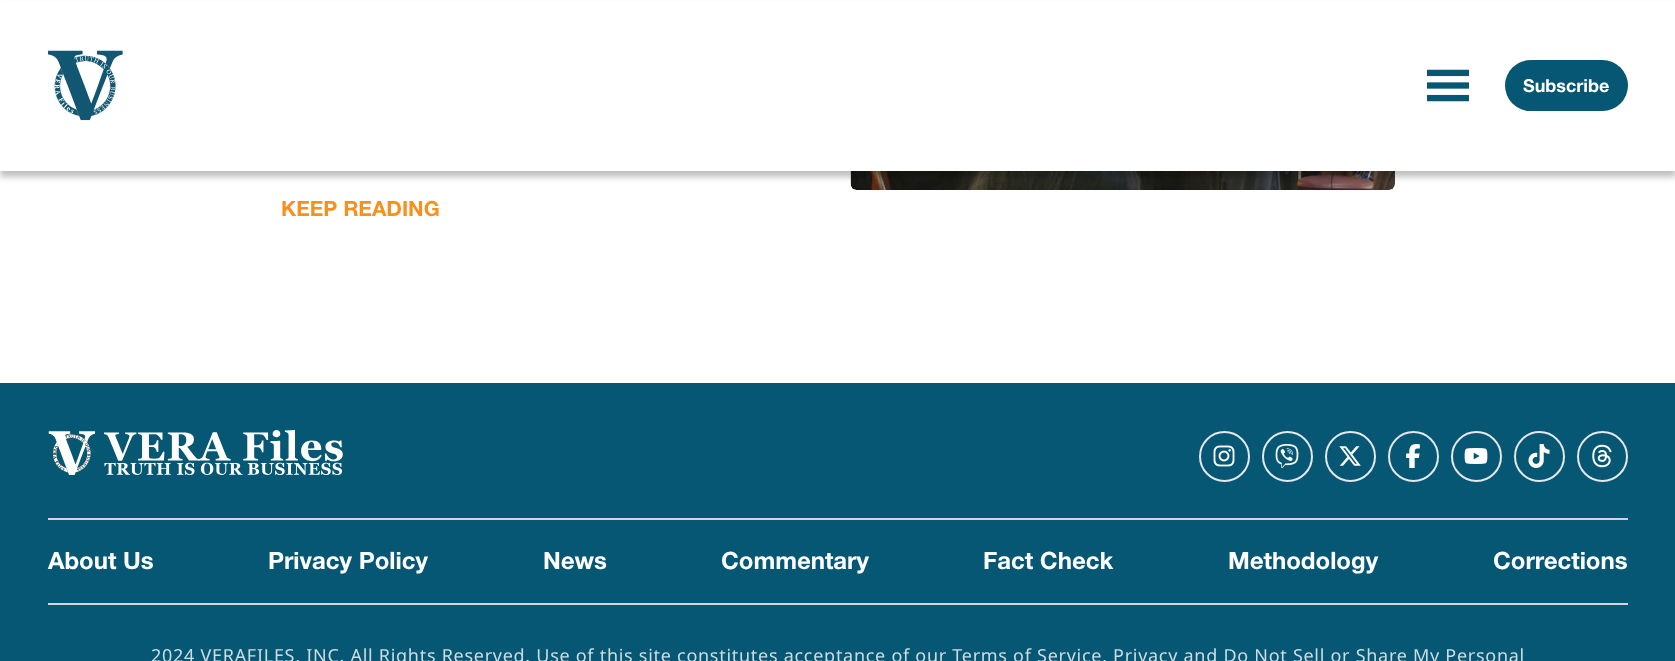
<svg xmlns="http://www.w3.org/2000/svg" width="1675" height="661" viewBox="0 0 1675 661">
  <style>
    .t1 { font: bold 18px Helvetica Neue; fill: #fff; }
    .t2 { font: bold 21px Helvetica Neue; fill: #f6911d; }
    .t3 { font: bold 24px Helvetica Neue; fill: #fff; }
    .t4 { font: 18px Noto Sans; letter-spacing: 0.72px; fill: #cddde3; }
  </style>
  <rect width="100%" height="100%" fill="#fff"/>
  <image x="850" y="171" width="545" height="19" href="images/3.png"/>
  <rect x="0" y="6" width="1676" height="171" fill="#00000040" filter="blur(3px)"/>
  <rect x="0" y="1" width="1675" height="170" fill="#fff"/>
  <image x="48" y="50" width="75" height="71" href="images/1.png"/>
  <image x="1427" y="69" width="42" height="33" href="images/2.png"/>
  <rect x="1505" y="60" width="123" height="51" rx="25.5" fill="#065773"/>
  <text x="1523" y="92" class="t1">Subscribe</text>
  <text x="281" y="216" class="t2">KEEP READING</text>
  <rect x="0" y="383" width="1675" height="278" fill="#065773"/>
  <image x="48" y="430" width="295" height="45" href="images/4.png"/>
  <circle cx="1224.5" cy="456.5" r="24.5" fill="none" stroke="#e5e7eb" stroke-width="2"/>
  <image x="1213" y="445" width="22" height="22" href="images/5.png"/>
  <circle cx="1287.5" cy="456.5" r="24.5" fill="none" stroke="#e5e7eb" stroke-width="2"/>
  <image x="1275" y="444" width="24" height="24" href="images/6.png"/>
  <circle cx="1350.5" cy="456.5" r="24.5" fill="none" stroke="#e5e7eb" stroke-width="2"/>
  <image x="1339" y="446" width="22" height="20" href="images/7.png"/>
  <circle cx="1413.5" cy="456.5" r="24.5" fill="none" stroke="#e5e7eb" stroke-width="2"/>
  <image x="1406" y="444" width="14" height="24" href="images/8.png"/>
  <circle cx="1476.5" cy="456.5" r="24.5" fill="none" stroke="#e5e7eb" stroke-width="2"/>
  <image x="1464" y="448" width="24" height="16" href="images/9.png"/>
  <circle cx="1539.5" cy="456.5" r="24.5" fill="none" stroke="#e5e7eb" stroke-width="2"/>
  <image x="1528" y="444" width="22" height="24" href="images/10.png"/>
  <circle cx="1602.5" cy="456.5" r="24.5" fill="none" stroke="#e5e7eb" stroke-width="2"/>
  <image x="1592" y="444" width="20" height="24" href="images/11.png"/>
  <rect x="48" y="518" width="1580" height="2" fill="#d1d5db"/>
  <text x="48" y="569" class="t3">About Us</text>
  <text x="268" y="569" class="t3">Privacy Policy</text>
  <text x="543" y="569" class="t3">News</text>
  <text x="721" y="569" class="t3">Commentary</text>
  <text x="983" y="569" class="t3">Fact Check</text>
  <text x="1228" y="569" class="t3">Methodology</text>
  <text x="1493" y="569" class="t3">Corrections</text>
  <rect x="48" y="603" width="1580" height="2" fill="#d1d5db"/>
  <text x="151" y="662" class="t4">2024 VERAFILES, INC. All Rights Reserved. Use of this site constitutes acceptance of our Terms of Service, Privacy and Do Not Sell or Share My Personal</text>
</svg>
